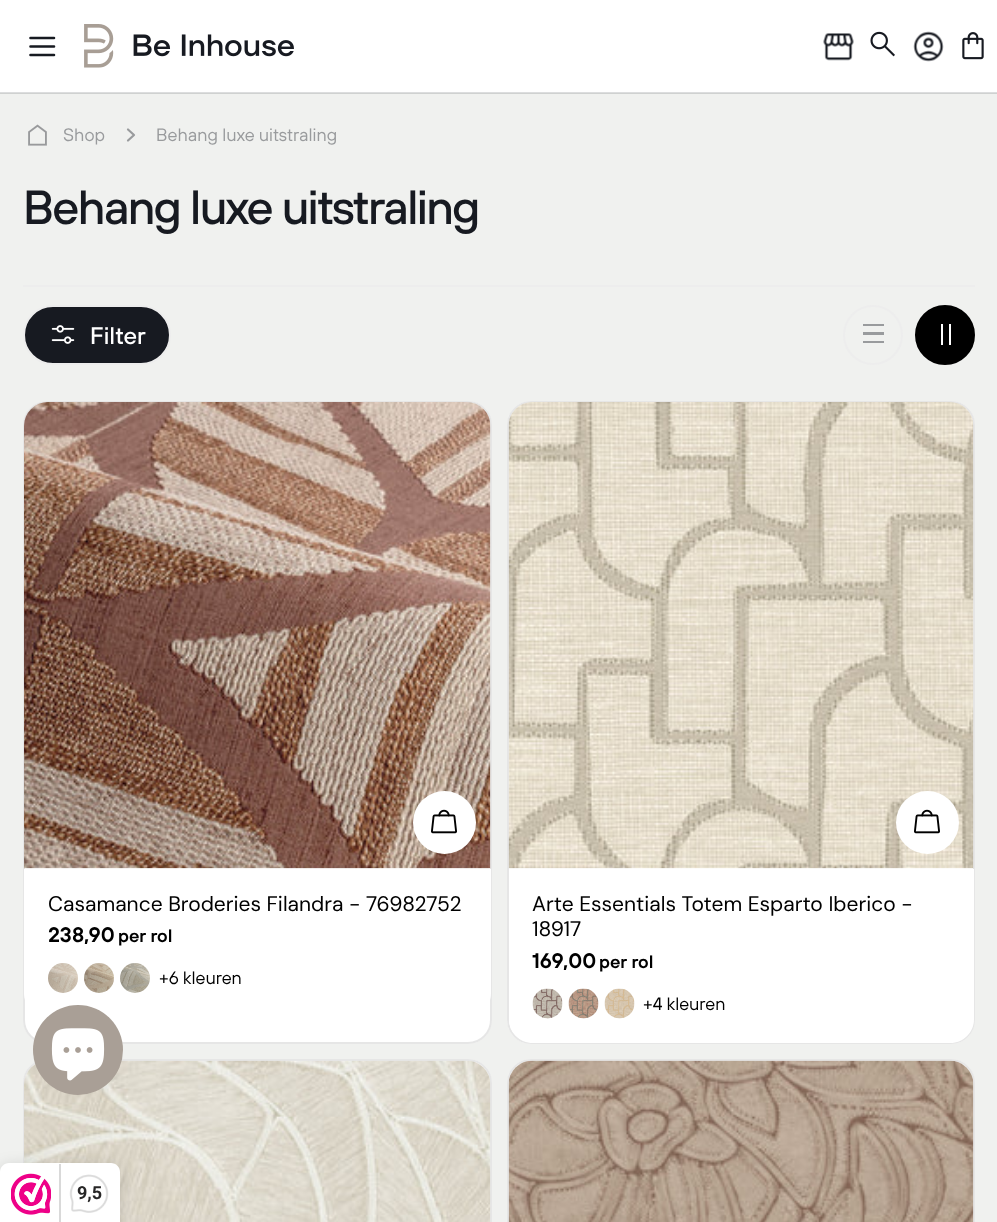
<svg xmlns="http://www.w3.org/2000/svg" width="997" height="1222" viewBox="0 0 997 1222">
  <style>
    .t1 { font: 18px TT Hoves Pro; fill: #999b9d; }
    .t2 { font: 500 48px TT Hoves Pro; letter-spacing: -1.9px; fill: #171a21; }
    .t3 { font: 500 24px TT Hoves Pro; fill: #fff; }
    .t4 { font: 21px DM Sans; fill: #000; }
    .t5 { font: 600 21px TT Hoves Pro; fill: #000; }
    .t6 { font: 600 18px TT Hoves Pro; fill: #000; }
    .t7 { font: 18px TT Hoves Pro; fill: #000; }
    .t8 { font: bold 18px Roboto; fill: #272626; }
  </style>
  <rect width="100%" height="100%" fill="#fff"/>
  <rect x="0" y="92" width="997" height="1" fill="#dcddde"/>
  <path d="M30.5 46.5H54M30.5 38H54M30.5 55H54" fill="none" stroke="#171a21" stroke-width="2.6" stroke-linecap="round" stroke-linejoin="round"/>
  <image x="84" y="24" width="210" height="44" href="images/1.png"/>
  <image x="823" y="33" width="31" height="28" href="images/2.png"/>
  <image x="870" y="31" width="25" height="26" href="images/3.png"/>
  <image x="913" y="31" width="31" height="31" href="images/4.png"/>
  <image x="962" y="32" width="22" height="28" href="images/5.png"/>
  <rect x="0" y="94" width="997" height="1128" fill="#f0f1ef"/>
  <rect x="0" y="93" width="997" height="1" fill="#cfd1d0"/>
  <image x="28" y="124" width="19" height="22" href="images/6.png"/>
  <text x="63" y="141" class="t1">Shop</text>
  <path d="M128 129.5L134 135L128 140.5" fill="none" stroke="#999b9d" stroke-width="2.2" stroke-linecap="round" stroke-linejoin="round"/>
  <text x="156" y="141" class="t1">Behang luxe uitstraling</text>
  <text x="23" y="224" class="t2">Behang luxe uitstraling</text>
  <rect x="23" y="285" width="952" height="2" fill="#ededed"/>
  <rect x="24" y="306" width="146" height="58" rx="29" fill="#171a21" stroke="#ededed" stroke-width="2"/>
  <image x="51" y="325" width="24" height="19" href="images/7.png"/>
  <text x="90" y="344" class="t3">Filter</text>
  <circle cx="873" cy="335" r="29" fill="none" stroke="#ededed" stroke-width="2"/>
  <rect x="863" y="341" width="21" height="2" fill="#999b9d"/>
  <rect x="863" y="332" width="21" height="3" fill="#999b9d"/>
  <rect x="863" y="324" width="21" height="2" fill="#999b9d"/>
  <circle cx="945" cy="335" r="29" fill="#000" stroke="#000" stroke-width="2"/>
  <rect x="941" y="324" width="2" height="21" fill="#fff"/>
  <rect x="949" y="324" width="2" height="21" fill="#fff"/>
  <rect x="23" y="401" width="469" height="643" rx="24" fill="#fff"/>
  <rect x="24" y="402" width="467" height="641" rx="23" fill="none" stroke="#d3d3d391" stroke-width="2"/>
  <image x="24" y="402" width="467" height="467" href="images/8.png"/>
  <circle cx="444.5" cy="822.5" r="31.5" fill="#fff"/>
  <image x="431" y="809" width="26" height="25" href="images/9.png"/>
  <path d="M24 869H491V993C491 1006.5 480.5 1017 467 1017H48C34.5 1017 24 1006.5 24 993Z" fill="#fff"/>
  <text x="48" y="911" class="t4">Casamance Broderies Filandra - 76982752</text>
  <text x="48" y="942" class="t5">238,90</text>
  <text x="118" y="942" class="t6">per rol</text>
  <image x="48" y="963" width="30" height="30" href="images/10.png"/>
  <image x="84" y="963" width="30" height="30" href="images/11.png"/>
  <image x="120" y="963" width="30" height="30" href="images/12.png"/>
  <text x="159" y="984" class="t7">+6 kleuren</text>
  <rect x="507" y="401" width="468" height="643" rx="24" fill="#fff"/>
  <rect x="508" y="402" width="466" height="641" rx="23" fill="none" stroke="#d3d3d391" stroke-width="2"/>
  <image x="508" y="402" width="466" height="467" href="images/13.png"/>
  <circle cx="927.5" cy="822.5" r="31.5" fill="#fff"/>
  <image x="914" y="809" width="26" height="25" href="images/9.png"/>
  <path d="M509 869H974V1019C974 1032.5 963.5 1043 950 1043H533C519.5 1043 509 1032.5 509 1019Z" fill="#fff"/>
  <text x="532" y="911" class="t4">Arte Essentials Totem Esparto Iberico -</text>
  <text x="532" y="936" class="t4">18917</text>
  <text x="532" y="968" class="t5">169,00</text>
  <text x="599" y="968" class="t6">per rol</text>
  <image x="532" y="988" width="31" height="31" href="images/14.png"/>
  <image x="568" y="988" width="31" height="31" href="images/15.png"/>
  <image x="604" y="988" width="31" height="31" href="images/16.png"/>
  <text x="643" y="1010" class="t7">+4 kleuren</text>
  <rect x="23" y="1059" width="469" height="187" rx="24" fill="#fff"/>
  <rect x="24" y="1060" width="467" height="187" rx="23" fill="none" stroke="#d3d3d391" stroke-width="2"/>
  <image x="24" y="1060" width="467" height="162" href="images/17.png"/>
  <rect x="507" y="1059" width="468" height="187" rx="24" fill="#fff"/>
  <rect x="508" y="1060" width="466" height="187" rx="23" fill="none" stroke="#d3d3d391" stroke-width="2"/>
  <image x="508" y="1060" width="466" height="162" href="images/18.png"/>
  <circle cx="78" cy="1050" r="45" fill="#a99f96"/>
  <image x="51" y="1028" width="54" height="53" href="images/19.png"/>
  <rect x="0" y="1166" width="120" height="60" rx="9" fill="#00000026" filter="blur(7.5px)"/>
  <path d="M9 1163H111C116 1163 120 1167 120 1172V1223H0V1172C0 1167 4 1163 9 1163Z" fill="#fff"/>
  <image x="11" y="1173" width="40" height="42" href="images/20.png"/>
  <rect x="59" y="1164" width="2" height="58" fill="#d9d9d9"/>
  <image x="69" y="1174" width="40" height="39" href="images/21.png"/>
  <text x="77" y="1199" class="t8">9,5</text>
</svg>
